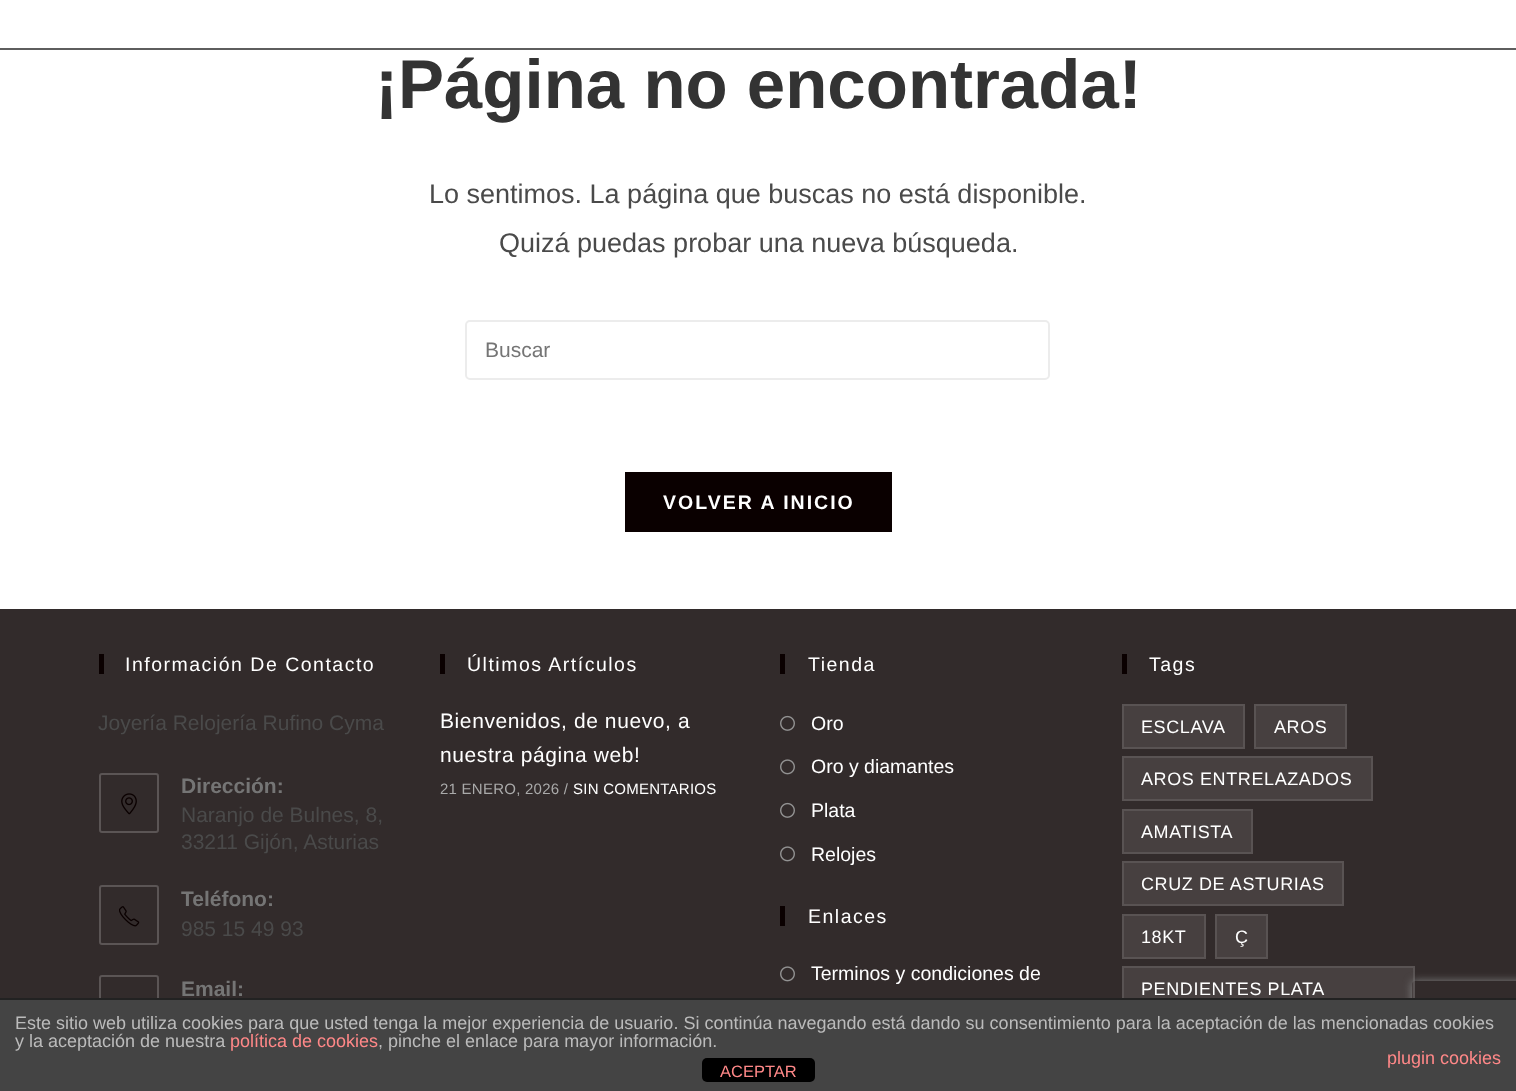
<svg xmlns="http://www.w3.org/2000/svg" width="1516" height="1091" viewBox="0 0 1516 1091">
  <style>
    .t1 { font: bold 69px Liberation Sans; fill: #333; }
    .t2 { font: 27px Liberation Sans; fill: #4a4a4a; }
    .t3 { font: 21px Liberation Sans; fill: #757575; }
    .t4 { font: bold 19.5px Liberation Sans; letter-spacing: 2px; fill: #fff; }
    .t5 { font: 19.5px Liberation Sans; letter-spacing: 1.5px; fill: #fff; }
    .t6 { font: 21px Liberation Sans; fill: #4a4a4a; }
    .t7 { font: bold 21px Liberation Sans; fill: #757575; }
    .t8 { font: 21px Liberation Sans; letter-spacing: 0.6px; fill: #fff; }
    .t9 { font: 15px Liberation Sans; letter-spacing: 0.25px; fill: #aaa; }
    .t10 { font: 15px Liberation Sans; letter-spacing: 0.25px; fill: #fff; }
    .t11 { font: 19.5px Liberation Sans; fill: #fff; }
    .t12 { font: 18px Liberation Sans; letter-spacing: 0.6px; fill: #fff; }
    .t13 { font: 18px Liberation Sans; fill: #bbb; }
    .t14 { font: 18px Liberation Sans; fill: #f88; }
    .t15 { font: 16.5px Liberation Sans; fill: #f88; }
  </style>
  <defs>
    <clipPath id="clip1"><path d="M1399 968H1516V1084H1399ZM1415 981H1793C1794.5 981 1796 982.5 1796 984V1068C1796 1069.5 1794.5 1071 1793 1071H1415C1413.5 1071 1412 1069.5 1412 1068V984C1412 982.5 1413.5 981 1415 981Z" clip-rule="evenodd"/></clipPath>
  </defs>
  <rect width="100%" height="100%" fill="#fff"/>
  <rect x="0" y="48" width="1516" height="2" fill="#5e5e5e"/>
  <text x="375" y="108" class="t1">¡Página no encontrada!</text>
  <text x="429" y="203" class="t2">Lo sentimos. La página que buscas no está disponible.</text>
  <text x="499" y="252" class="t2">Quizá puedas probar una nueva búsqueda.</text>
  <rect x="466" y="321" width="583" height="58" rx="4" fill="none" stroke="#ececec" stroke-width="2"/>
  <text x="485" y="357" class="t3">Buscar</text>
  <rect x="625" y="472" width="267" height="60" fill="#0a0000"/>
  <text x="663" y="509" class="t4">VOLVER A INICIO</text>
  <rect x="0" y="609" width="1516" height="389" fill="#322b2b"/>
  <rect x="99" y="654" width="5" height="20" fill="#0a0000"/>
  <text x="125" y="671" class="t5">Información De Contacto</text>
  <text x="98" y="730" class="t6">Joyería Relojería Rufino Cyma</text>
  <rect x="100" y="774" width="58" height="58" rx="2" fill="none" stroke="#5b5555" stroke-width="2"/>
  <image x="121" y="793" width="16" height="22" href="images/1.png"/>
  <text x="181" y="793" class="t7">Dirección:</text>
  <text x="181" y="822" class="t6">Naranjo de Bulnes, 8,</text>
  <text x="181" y="849" class="t6">33211 Gijón, Asturias</text>
  <rect x="100" y="886" width="58" height="58" rx="2" fill="none" stroke="#5b5555" stroke-width="2"/>
  <image x="119" y="906" width="21" height="21" href="images/2.png"/>
  <text x="181" y="906" class="t7">Teléfono:</text>
  <text x="181" y="936" class="t6">985 15 49 93</text>
  <rect x="100" y="976" width="58" height="58" rx="2" fill="none" stroke="#5b5555" stroke-width="2"/>
  <text x="181" y="996" class="t7">Email:</text>
  <rect x="440" y="654" width="5" height="20" fill="#0a0000"/>
  <text x="467" y="671" class="t5">Últimos Artículos</text>
  <text x="440" y="728" class="t8">Bienvenidos, de nuevo, a</text>
  <text x="440" y="762" class="t8">nuestra página web!</text>
  <text x="440" y="794" class="t9">21 ENERO, 2026 /</text>
  <text x="573" y="794" class="t10">SIN COMENTARIOS</text>
  <rect x="780" y="654" width="5" height="20" fill="#0a0000"/>
  <text x="808" y="671" class="t5">Tienda</text>
  <image x="780" y="715" width="15" height="16" href="images/3.png"/>
  <text x="811" y="730" class="t11">Oro</text>
  <image x="780" y="759" width="15" height="16" href="images/4.png"/>
  <text x="811" y="773" class="t11">Oro y diamantes</text>
  <image x="780" y="802" width="15" height="16" href="images/3.png"/>
  <text x="811" y="817" class="t11">Plata</text>
  <image x="780" y="846" width="15" height="16" href="images/4.png"/>
  <text x="811" y="861" class="t11">Relojes</text>
  <rect x="780" y="906" width="5" height="20" fill="#0a0000"/>
  <text x="808" y="923" class="t5">Enlaces</text>
  <image x="780" y="966" width="15" height="16" href="images/4.png"/>
  <text x="811" y="980" class="t11">Terminos y condiciones de</text>
  <rect x="1122" y="654" width="5" height="20" fill="#0a0000"/>
  <text x="1149" y="671" class="t5">Tags</text>
  <rect x="1123" y="705" width="121" height="43" fill="#474040" stroke="#595353" stroke-width="2"/>
  <text x="1141" y="733" class="t12">ESCLAVA</text>
  <rect x="1255" y="705" width="91" height="43" fill="#474040" stroke="#595353" stroke-width="2"/>
  <text x="1274" y="733" class="t12">AROS</text>
  <rect x="1123" y="757" width="249" height="43" fill="#474040" stroke="#595353" stroke-width="2"/>
  <text x="1141" y="785" class="t12">AROS ENTRELAZADOS</text>
  <rect x="1123" y="810" width="129" height="43" fill="#474040" stroke="#595353" stroke-width="2"/>
  <text x="1141" y="838" class="t12">AMATISTA</text>
  <rect x="1123" y="862" width="220" height="43" fill="#474040" stroke="#595353" stroke-width="2"/>
  <text x="1141" y="890" class="t12">CRUZ DE ASTURIAS</text>
  <rect x="1123" y="915" width="82" height="43" fill="#474040" stroke="#595353" stroke-width="2"/>
  <text x="1141" y="943" class="t12">18KT</text>
  <rect x="1216" y="915" width="51" height="43" fill="#474040" stroke="#595353" stroke-width="2"/>
  <text x="1235" y="943" class="t12">Ç</text>
  <rect x="1124" y="968" width="289" height="30" fill="#474040"/>
  <rect x="1123" y="967" width="291" height="61" fill="none" stroke="#595353" stroke-width="2"/>
  <text x="1141" y="995" class="t12">PENDIENTES PLATA</text>
  <g clip-path="url(#clip1)">
    <rect x="1412" y="981" width="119" height="90" rx="3" fill="#808080" filter="blur(4px)"/>
  </g>
  <rect x="0" y="1000" width="1516" height="91" fill="#444"/>
  <rect x="0" y="998" width="1516" height="2" fill="#222"/>
  <text x="15" y="1029" class="t13">Este sitio web utiliza cookies para que usted tenga la mejor experiencia de usuario. Si continúa navegando está dando su consentimiento para la aceptación de las mencionadas cookies</text>
  <text x="15" y="1047" class="t13">y la aceptación de nuestra</text>
  <text x="230" y="1047" class="t14">política de cookies</text>
  <text x="378" y="1047" class="t13">, pinche el enlace para mayor información.</text>
  <text x="1387" y="1064" class="t14">plugin cookies</text>
  <rect x="702" y="1058" width="113" height="24" rx="5" fill="#000"/>
  <text x="720" y="1077" class="t15">ACEPTAR</text>
</svg>
